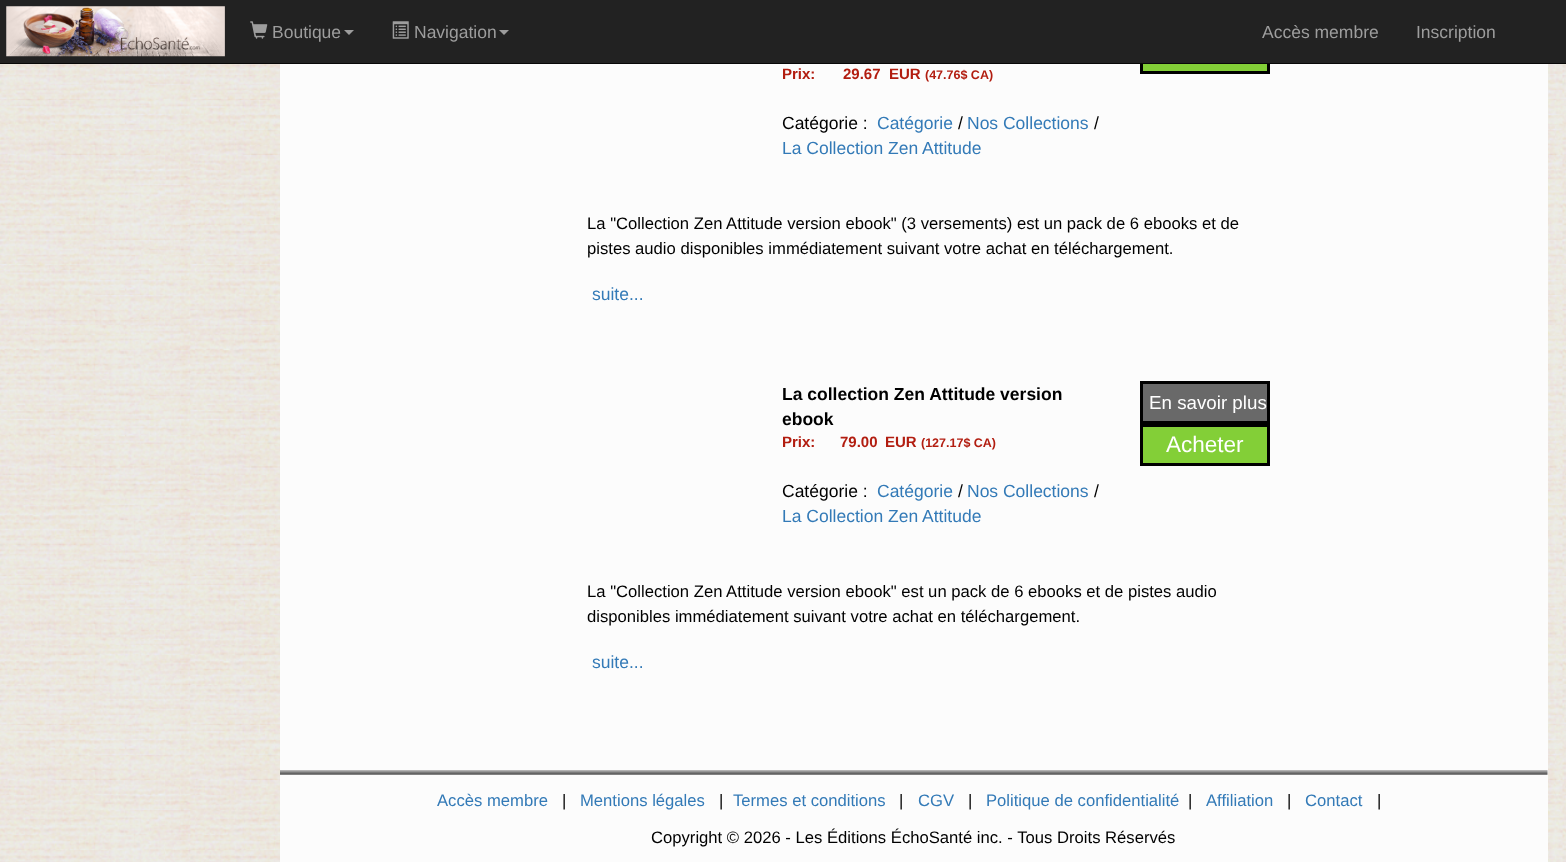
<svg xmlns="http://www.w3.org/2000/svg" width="1566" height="862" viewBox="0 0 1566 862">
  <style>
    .t1 { font: 17.5px Liberation Sans; fill: #9d9d9d; }
    .t2 { font: bold 15px Liberation Sans; fill: #b21d10; }
    .t3 { font: bold 12.5px Liberation Sans; fill: #b21d10; }
    .t4 { font: 17.5px Liberation Sans; fill: #000; }
    .t5 { font: 17.5px Liberation Sans; fill: #337ab7; }
    .t6 { font: 16.65px Liberation Sans; fill: #000; }
    .t7 { font: bold 17.5px Liberation Sans; fill: #000; }
    .t8 { font: 18.75px Liberation Sans; fill: #fff; }
    .t9 { font: 22.5px Liberation Sans; fill: #fff; }
    .t10 { font: 16.65px Liberation Sans; fill: #337ab7; }
  </style>
  <rect width="100%" height="100%" fill="#fff"/>
  <image x="0" y="64" width="1566" height="798" href="images/1.png"/>
  <rect x="280" y="64" width="1268" height="798" fill="#fcfcfc"/>
  <rect x="1143" y="64" width="124" height="7" fill="#83cf37"/>
  <rect x="1141.5" y="32.5" width="127" height="40" fill="none" stroke="#000" stroke-width="3"/>
  <rect x="0" y="0" width="1566" height="63" fill="#222"/>
  <rect x="0" y="63" width="1566" height="1" fill="#080808"/>
  <image x="6" y="6" width="219" height="51" href="images/2.png"/>
  <image x="250" y="21" width="18" height="18" href="images/3.png"/>
  <text x="272" y="38" class="t1">Boutique</text>
  <path d="M344 30H354L349 35Z" fill="#9d9d9d"/>
  <image x="392" y="21" width="17" height="18" href="images/4.png"/>
  <text x="414" y="38" class="t1">Navigation</text>
  <path d="M499 30H509L504 35Z" fill="#9d9d9d"/>
  <text x="1262" y="38" class="t1">Accès membre</text>
  <text x="1416" y="38" class="t1">Inscription</text>
  <text x="782" y="79" class="t2">Prix:</text>
  <text x="843" y="79" class="t2">29.67</text>
  <text x="889" y="79" class="t2">EUR</text>
  <text x="925" y="79" class="t3">(47.76$ CA)</text>
  <text x="782" y="129" class="t4">Catégorie :</text>
  <text x="877" y="129" class="t5">Catégorie</text>
  <text x="958" y="129" class="t4">/</text>
  <text x="967" y="129" class="t5">Nos Collections</text>
  <text x="1094" y="129" class="t4">/</text>
  <text x="782" y="154" class="t5">La Collection Zen Attitude</text>
  <text x="587" y="229" class="t6">La "Collection Zen Attitude version ebook" (3 versements) est un pack de 6 ebooks et de</text>
  <text x="587" y="254" class="t6">pistes audio disponibles immédiatement suivant votre achat en téléchargement.</text>
  <text x="592" y="300" class="t5">suite...</text>
  <text x="782" y="400" class="t7">La collection Zen Attitude version</text>
  <text x="782" y="425" class="t7">ebook</text>
  <text x="782" y="447" class="t2">Prix:</text>
  <text x="840" y="447" class="t2">79.00</text>
  <text x="885" y="447" class="t2">EUR</text>
  <text x="921" y="447" class="t3">(127.17$ CA)</text>
  <text x="782" y="497" class="t4">Catégorie :</text>
  <text x="877" y="497" class="t5">Catégorie</text>
  <text x="958" y="497" class="t4">/</text>
  <text x="967" y="497" class="t5">Nos Collections</text>
  <text x="1094" y="497" class="t4">/</text>
  <text x="782" y="522" class="t5">La Collection Zen Attitude</text>
  <rect x="1141.5" y="382.5" width="127" height="40" fill="#696969" stroke="#000" stroke-width="3"/>
  <text x="1149" y="409" class="t8">En savoir plus</text>
  <rect x="1141.5" y="425.5" width="127" height="39" fill="#83cf37" stroke="#000" stroke-width="3"/>
  <text x="1166" y="452" class="t9">Acheter</text>
  <text x="587" y="597" class="t6">La "Collection Zen Attitude version ebook" est un pack de 6 ebooks et de pistes audio</text>
  <text x="587" y="622" class="t6">disponibles immédiatement suivant votre achat en téléchargement.</text>
  <text x="592" y="668" class="t5">suite...</text>
  <image x="280" y="770" width="1268" height="5" href="images/5.png"/>
  <text x="437" y="806" class="t10">Accès membre</text>
  <text x="562" y="806" class="t6">|</text>
  <text x="580" y="806" class="t10">Mentions légales</text>
  <text x="719" y="806" class="t6">|</text>
  <text x="733" y="806" class="t10">Termes et conditions</text>
  <text x="899" y="806" class="t6">|</text>
  <text x="918" y="806" class="t10">CGV</text>
  <text x="968" y="806" class="t6">|</text>
  <text x="986" y="806" class="t10">Politique de confidentialité</text>
  <text x="1188" y="806" class="t6">|</text>
  <text x="1206" y="806" class="t10">Affiliation</text>
  <text x="1287" y="806" class="t6">|</text>
  <text x="1305" y="806" class="t10">Contact</text>
  <text x="1377" y="806" class="t6">|</text>
  <text x="651" y="843" class="t6">Copyright © 2026 - Les Éditions ÉchoSanté inc. - Tous Droits Réservés</text>
</svg>
